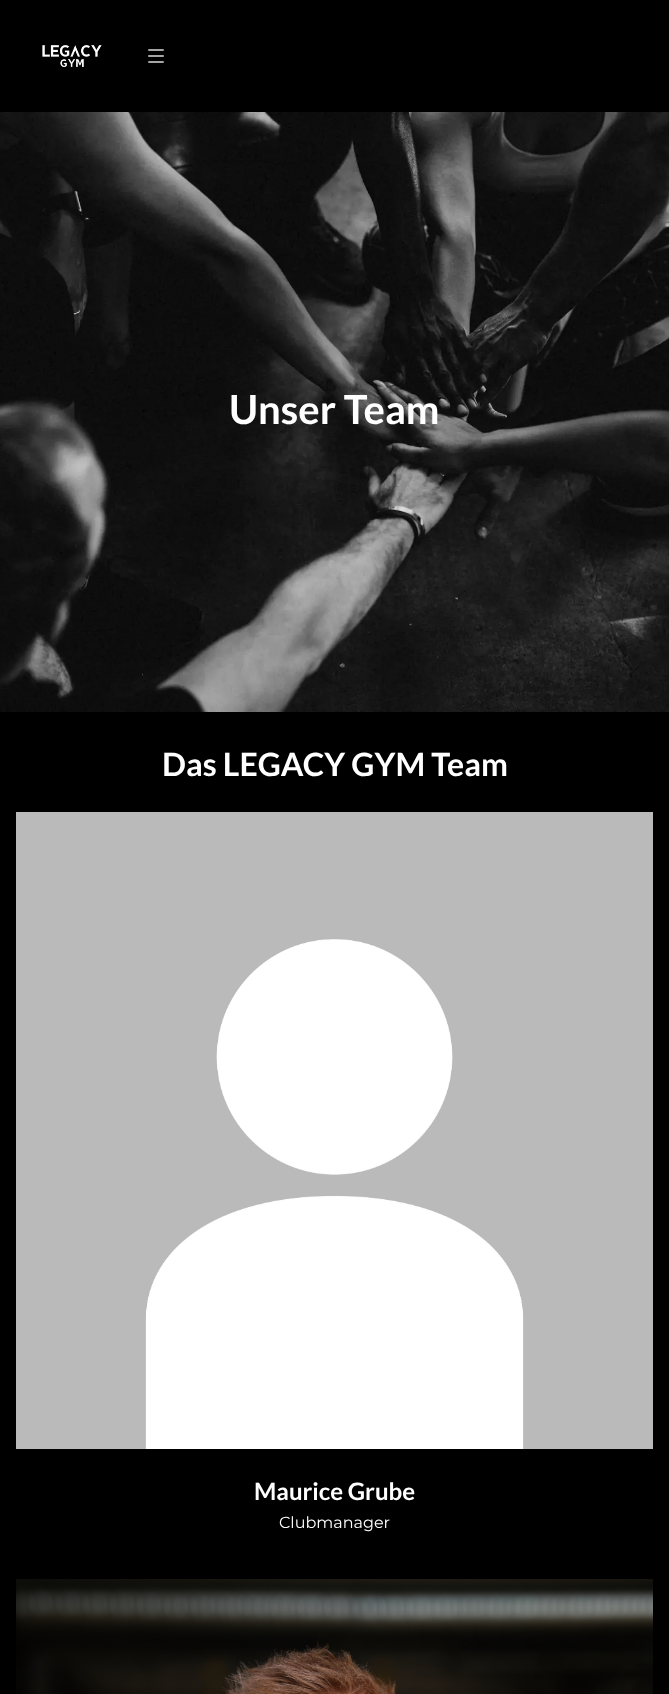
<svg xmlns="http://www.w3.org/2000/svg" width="669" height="1694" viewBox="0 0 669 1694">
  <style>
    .t1 { font: bold 40px Lato; fill: #fff; }
    .t2 { font: bold 32px Lato; fill: #fff; }
    .t3 { font: bold 24px Lato; fill: #fff; }
    .t4 { font: 16px Montserrat; fill: #fff; }
  </style>
  <rect width="100%" height="100%" fill="#000"/>
  <image x="42" y="45" width="60" height="22" href="images/1.png"/>
  <rect x="148" y="49" width="16" height="2" rx="1" fill="#a4a4a4"/>
  <rect x="148" y="61" width="16" height="2" rx="1" fill="#a4a4a4"/>
  <rect x="148" y="55" width="16" height="2" rx="1" fill="#a4a4a4"/>
  <image x="0" y="112" width="669" height="600" href="images/2.png"/>
  <text x="229" y="424" class="t1">Unser Team</text>
  <text x="162" y="776" class="t2">Das LEGACY GYM Team</text>
  <image x="16" y="812" width="637" height="637" href="images/3.png"/>
  <text x="254" y="1500" class="t3">Maurice Grube</text>
  <text x="279" y="1528" class="t4">Clubmanager</text>
  <image x="16" y="1579" width="637" height="115" href="images/4.png"/>
</svg>
